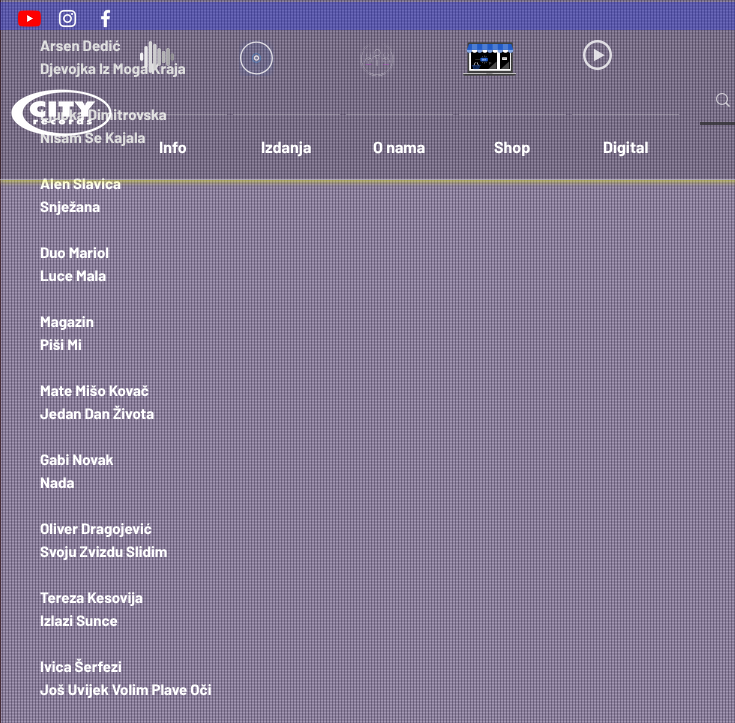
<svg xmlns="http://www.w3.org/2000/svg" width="735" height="723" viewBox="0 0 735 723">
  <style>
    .t1 { font: bold 15px Barlow; fill: #fff; }
    .t2 { font: bold 16px Barlow; fill: #fff; }
  </style>
  <defs>
    <clipPath id="clip1"><rect x="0" y="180" width="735" height="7"/></clipPath>
  </defs>
  <rect width="100%" height="100%" fill="#a599b5"/>
  <image x="1" y="0" width="734" height="723" href="images/1.png"/>
  <rect x="0.5" y="-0.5" width="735" height="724" fill="none" stroke="#472d39"/>
  <text x="40" y="51" class="t1">Arsen Dedić</text>
  <text x="40" y="74" class="t1">Djevojka Iz Moga Kraja</text>
  <text x="40" y="120" class="t1">Ljupka Dimitrovska</text>
  <text x="40" y="143" class="t1">Nisam Se Kajala</text>
  <text x="40" y="189" class="t1">Alen Slavica</text>
  <text x="40" y="212" class="t1">Snježana</text>
  <text x="40" y="258" class="t1">Duo Mariol</text>
  <text x="40" y="281" class="t1">Luce Mala</text>
  <text x="40" y="327" class="t1">Magazin</text>
  <text x="40" y="350" class="t1">Piši Mi</text>
  <text x="40" y="396" class="t1">Mate Mišo Kovač</text>
  <text x="40" y="419" class="t1">Jedan Dan Života</text>
  <text x="40" y="465" class="t1">Gabi Novak</text>
  <text x="40" y="488" class="t1">Nada</text>
  <text x="40" y="534" class="t1">Oliver Dragojević</text>
  <text x="40" y="557" class="t1">Svoju Zvizdu Slidim</text>
  <text x="40" y="603" class="t1">Tereza Kesovija</text>
  <text x="40" y="626" class="t1">Izlazi Sunce</text>
  <text x="40" y="672" class="t1">Ivica Šerfezi</text>
  <text x="40" y="695" class="t1">Još Uvijek Volim Plave Oči</text>
  <g clip-path="url(#clip1)">
    <rect x="0" y="1" width="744" height="180" fill="#e7eb10ad" filter="blur(3px)"/>
  </g>
  <rect x="0" y="0" width="735" height="180" fill="#0000001f"/>
  <rect x="0" y="179" width="735" height="1" fill="#ffffff69"/>
  <rect x="0" y="2" width="735" height="28" fill="#1d2cf352"/>
  <image x="18" y="10" width="23" height="17" href="images/2.png"/>
  <image x="58" y="9" width="19" height="19" href="images/3.png"/>
  <image x="100" y="9" width="11" height="19" href="images/4.png"/>
  <image x="140" y="41" width="34" height="32" href="images/5.png"/>
  <image x="239" y="40" width="35" height="36" href="images/6.png"/>
  <image x="360" y="43" width="35" height="34" href="images/7.png"/>
  <image x="463" y="42" width="53" height="34" href="images/8.png"/>
  <image x="583" y="40" width="29" height="30" href="images/9.png"/>
  <image x="11" y="89" width="101" height="48" href="images/10.png"/>
  <rect x="700" y="122" width="35" height="3" fill="#2f2f30c2"/>
  <image x="716" y="93" width="14" height="14" href="images/11.png"/>
  <rect x="119" y="114" width="108" height="1" fill="#ffffff42"/>
  <text x="159" y="153" class="t2">Info</text>
  <rect x="233" y="114" width="107" height="1" fill="#ffffff42"/>
  <text x="261" y="153" class="t2">Izdanja</text>
  <rect x="346" y="114" width="107" height="1" fill="#ffffff42"/>
  <text x="373" y="153" class="t2">O nama</text>
  <rect x="459" y="114" width="107" height="1" fill="#ffffff42"/>
  <text x="494" y="153" class="t2">Shop</text>
  <rect x="572" y="114" width="107" height="1" fill="#ffffff42"/>
  <text x="603" y="153" class="t2">Digital</text>
</svg>
